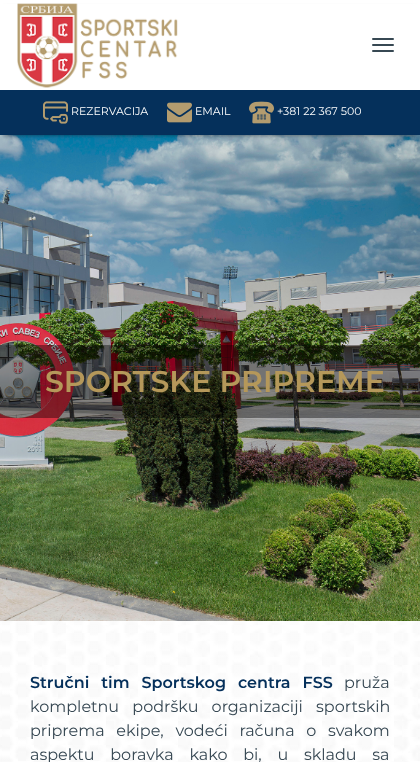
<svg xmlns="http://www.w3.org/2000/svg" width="420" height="762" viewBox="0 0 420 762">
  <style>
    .t1 { font: 11px Montserrat; fill: #fff; }
    .t2 { font: 600 30px Montserrat; fill: #b5985a; }
    .t3 { font: 600 16px Montserrat; fill: #05305b; }
    .t4 { font: 16px Montserrat; fill: #374853; }
  </style>
  <rect width="100%" height="100%" fill="#fff"/>
  <image x="0" y="621" width="420" height="141" href="images/1.png"/>
  <image x="0" y="135" width="420" height="486" href="images/6.png"/>
  <rect x="0" y="345" width="420" height="73" fill="#00000066"/>
  <rect x="0" y="135" width="420" height="486" fill="#0000001a"/>
  <rect x="4" y="8" width="412" height="127" fill="#00000080" filter="blur(2px)"/>
  <rect x="0" y="4" width="420" height="86" fill="#fff"/>
  <image x="17" y="3" width="161" height="85" href="images/2.png"/>
  <rect x="372" y="38" width="22" height="2" rx="1" fill="#374853"/>
  <rect x="372" y="44" width="22" height="2" rx="1" fill="#374853"/>
  <rect x="372" y="50" width="22" height="2" rx="1" fill="#374853"/>
  <rect x="0" y="90" width="420" height="45" fill="#05305b"/>
  <image x="43" y="101" width="25" height="23" href="images/3.png"/>
  <text x="71" y="115" class="t1">REZERVACIJA</text>
  <image x="167" y="102" width="25" height="21" href="images/4.png"/>
  <text x="195" y="115" class="t1">EMAIL</text>
  <image x="249" y="101" width="25" height="23" href="images/5.png"/>
  <text x="277" y="115" class="t1">+381 22 367 500</text>
  <text x="45" y="392" class="t2">SPORTSKE PRIPREME</text>
  <text x="30" y="688" word-spacing="7.5" class="t3">Stručni tim Sportskog centra FSS</text>
  <text x="344" y="688" class="t4">pruža</text>
  <text x="30" y="712" word-spacing="9" class="t4">kompletnu podršku organizaciji sportskih</text>
  <text x="30" y="736" word-spacing="7.5" class="t4">priprema ekipe, vodeći računa o svakom</text>
  <text x="30" y="760" word-spacing="11.5" class="t4">aspektu boravka kako bi, u skladu sa</text>
</svg>
